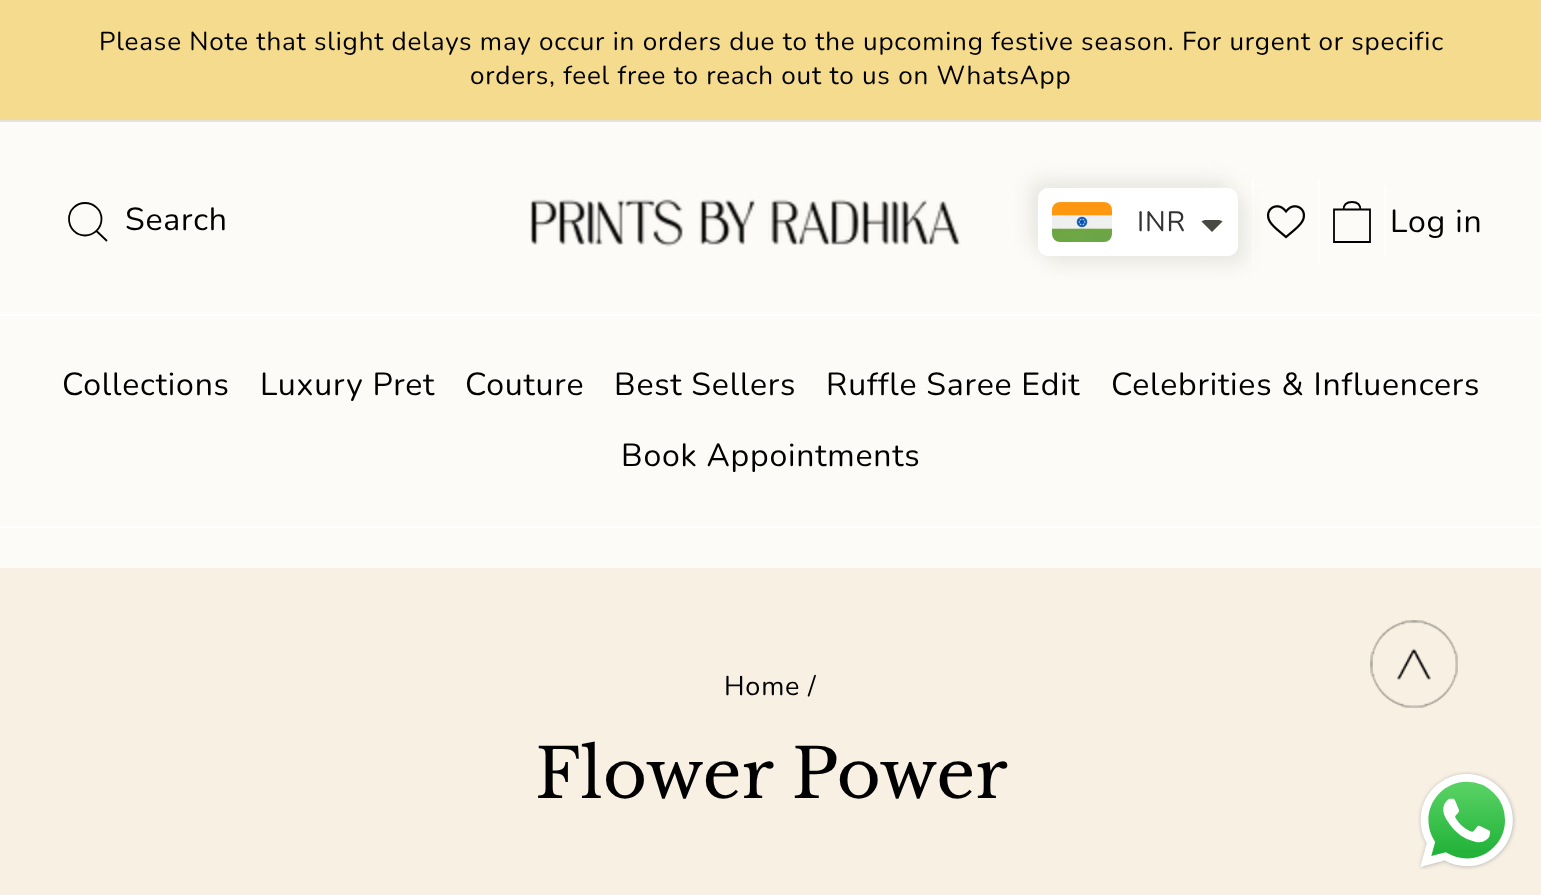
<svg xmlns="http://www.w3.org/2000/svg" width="1541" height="895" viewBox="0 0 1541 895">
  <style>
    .t1 { font: 26px Nunito; letter-spacing: 0.8px; fill: #000; }
    .t2 { font: 32px Nunito; letter-spacing: 0.8px; fill: #000; }
    .t3 { font: 28px Nunito; letter-spacing: 0.8px; fill: #333; }
    .t4 { font: 27px Nunito; letter-spacing: 0.8px; fill: #000; }
    .t5 { font: 68px Libre Baskerville; fill: #000; }
  </style>
  <rect width="100%" height="100%" fill="#f8f0e3"/>
  <rect x="0" y="0" width="1541" height="120" fill="#f4db8e"/>
  <text x="99" y="50" class="t1">Please Note that slight delays may occur in orders due to the upcoming festive season. For urgent or specific</text>
  <text x="470" y="84" class="t1">orders, feel free to reach out to us on WhatsApp</text>
  <rect x="0" y="122" width="1541" height="446" fill="#fcfbf7"/>
  <rect x="0" y="120" width="1541" height="2" fill="#e3e2de"/>
  <path d="M101.5 219C101.5 228 94 235.5 85 235.5C76 235.5 69 228 69 219C69 210 76 203 85 203C94 203 101.5 210 101.5 219ZM107 241L96.5 231" fill="none" stroke="#000" stroke-width="1.8"/>
  <text x="125" y="230" class="t2">Search</text>
  <image x="530" y="199" width="431" height="48" href="images/1.png"/>
  <rect x="1252" y="180" width="2" height="86" fill="#fefefc"/>
  <rect x="1030" y="180" width="200" height="68" rx="10" fill="#e8e8e2" filter="blur(9px)"/>
  <image x="1267" y="205" width="38" height="34" href="images/3.png"/>
  <rect x="1046" y="196" width="200" height="68" rx="10" fill="#e8e8e2" filter="blur(9px)"/>
  <rect x="1038" y="188" width="200" height="68" rx="10" fill="#fff"/>
  <image x="1052" y="202" width="60" height="40" href="images/2.png"/>
  <text x="1137" y="231" class="t3">INR</text>
  <path d="M1206 220C1204 220 1203 220.5 1201.5 221.5L1212 232L1222.5 221.5C1221 220.5 1220 220 1218 220Z" fill="#474942"/>
  <rect x="1318" y="180" width="2" height="86" fill="#fefefc"/>
  <path d="M1334 209.5H1370V242H1334ZM1343.5 210C1343.5 203.5 1347.5 202 1352 202C1356.5 202 1360.5 203.5 1360.5 210" fill="none" stroke="#000" stroke-width="1.8"/>
  <rect x="1384" y="186" width="2" height="72" fill="#fefefc"/>
  <text x="1390" y="232" class="t2">Log in</text>
  <rect x="0" y="314" width="1541" height="2" fill="#fff"/>
  <rect x="0" y="526" width="1541" height="2" fill="#fff"/>
  <text x="62" y="395" class="t2">Collections</text>
  <text x="260" y="395" class="t2">Luxury Pret</text>
  <text x="465" y="395" class="t2">Couture</text>
  <text x="614" y="395" class="t2">Best Sellers</text>
  <text x="826" y="395" class="t2">Ruffle Saree Edit</text>
  <text x="1111" y="395" class="t2">Celebrities &amp; Influencers</text>
  <text x="621" y="466" class="t2">Book Appointments</text>
  <text x="724" y="695" class="t4">Home /</text>
  <text x="535" y="798" class="t5">Flower Power</text>
  <image x="1370" y="620" width="88" height="88" href="images/4.png"/>
  <image x="1418" y="771" width="99" height="99" href="images/5.png"/>
</svg>
